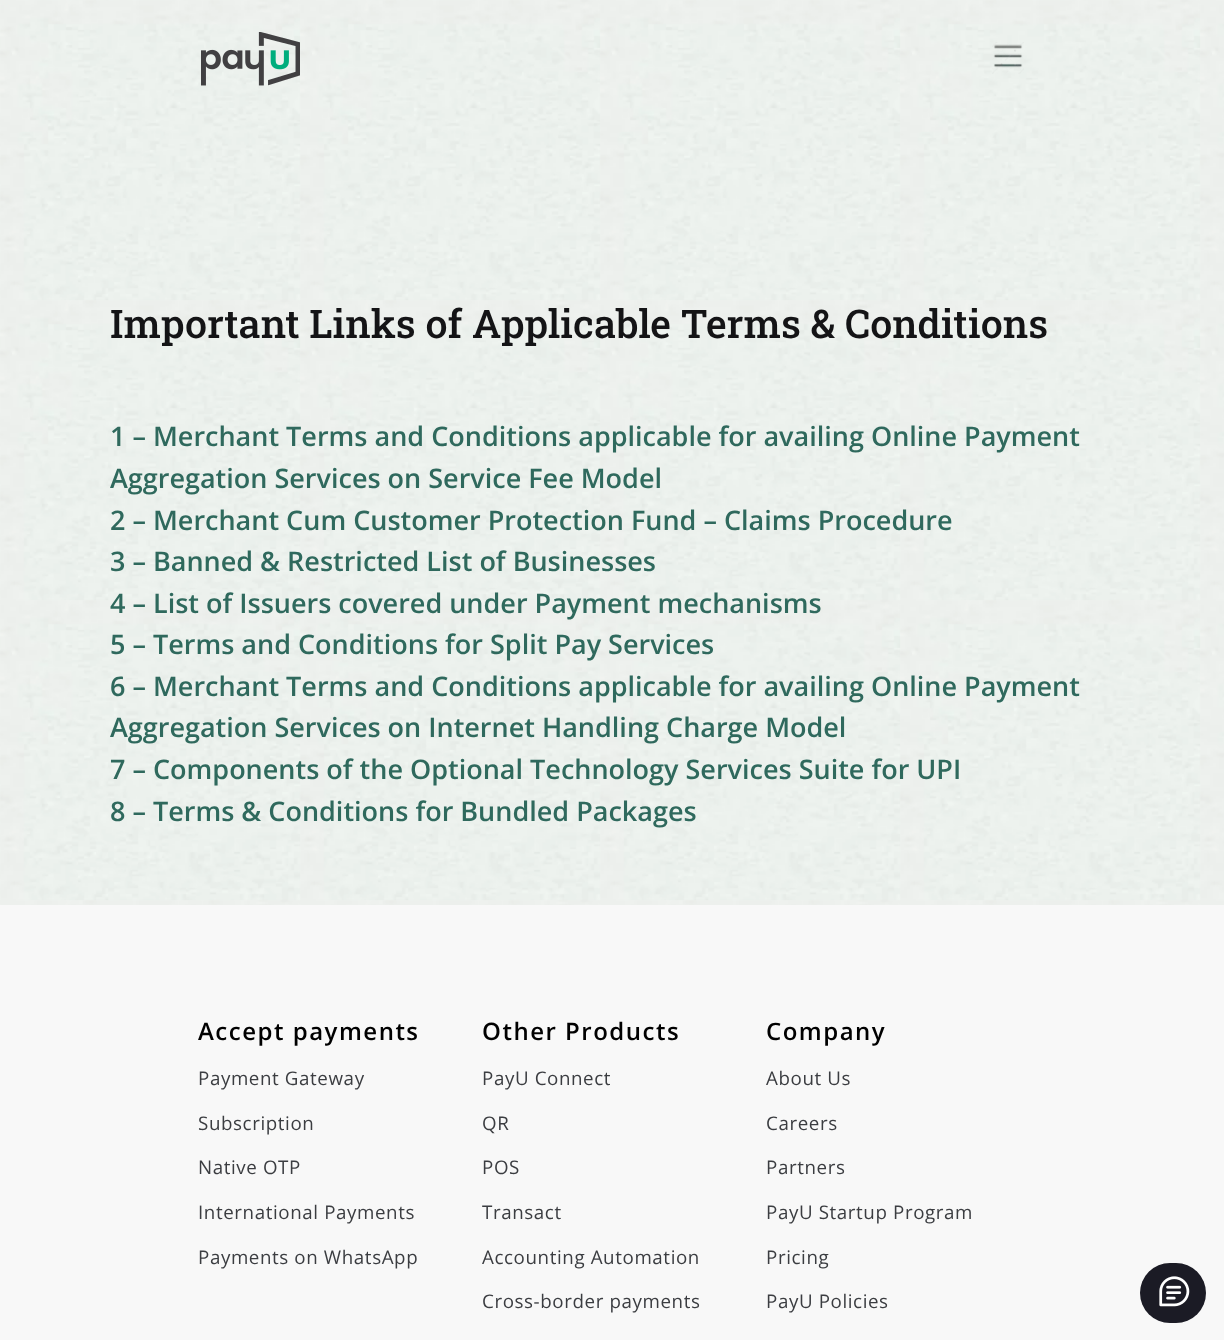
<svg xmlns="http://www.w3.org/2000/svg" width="1224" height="1340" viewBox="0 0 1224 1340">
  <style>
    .t1 { font: 500 39.5px Roboto Slab; fill: #141416; }
    .t2 { font: 600 27px Open Sans; fill: #2f695d; }
    .t3 { font: 600 24px Open Sans; letter-spacing: 1.5px; fill: #000; }
    .t4 { font: 18.75px Open Sans; letter-spacing: 0.6px; fill: #3b3d41; }
  </style>
  <rect width="100%" height="100%" fill="#fff"/>
  <image x="0" y="0" width="1224" height="905" href="images/1.png"/>
  <image x="201" y="32" width="99" height="54" href="images/2.png"/>
  <image x="992" y="42" width="32" height="32" href="images/3.png"/>
  <text x="110" y="338" class="t1">Important Links of Applicable Terms &amp; Conditions</text>
  <text x="110" y="446" class="t2">1 – Merchant Terms and Conditions applicable for availing Online Payment</text>
  <text x="110" y="488" class="t2">Aggregation Services on Service Fee Model</text>
  <text x="110" y="530" class="t2">2 – Merchant Cum Customer Protection Fund – Claims Procedure</text>
  <text x="110" y="571" class="t2">3 – Banned &amp; Restricted List of Businesses</text>
  <text x="110" y="613" class="t2">4 – List of Issuers covered under Payment mechanisms</text>
  <text x="110" y="654" class="t2">5 – Terms and Conditions for Split Pay Services</text>
  <text x="110" y="696" class="t2">6 – Merchant Terms and Conditions applicable for availing Online Payment</text>
  <text x="110" y="737" class="t2">Aggregation Services on Internet Handling Charge Model</text>
  <text x="110" y="779" class="t2">7 – Components of the Optional Technology Services Suite for UPI</text>
  <text x="110" y="821" class="t2">8 – Terms &amp; Conditions for Bundled Packages</text>
  <rect x="0" y="905" width="1224" height="435" fill="#f8f8f8"/>
  <text x="198" y="1040" class="t3">Accept payments</text>
  <text x="198" y="1085" class="t4">Payment Gateway</text>
  <text x="198" y="1130" class="t4">Subscription</text>
  <text x="198" y="1174" class="t4">Native OTP</text>
  <text x="198" y="1219" class="t4">International Payments</text>
  <text x="198" y="1264" class="t4">Payments on WhatsApp</text>
  <text x="482" y="1040" class="t3">Other Products</text>
  <text x="482" y="1085" class="t4">PayU Connect</text>
  <text x="482" y="1130" class="t4">QR</text>
  <text x="482" y="1174" class="t4">POS</text>
  <text x="482" y="1219" class="t4">Transact</text>
  <text x="482" y="1264" class="t4">Accounting Automation</text>
  <text x="482" y="1308" class="t4">Cross-border payments</text>
  <text x="766" y="1040" class="t3">Company</text>
  <text x="766" y="1085" class="t4">About Us</text>
  <text x="766" y="1130" class="t4">Careers</text>
  <text x="766" y="1174" class="t4">Partners</text>
  <text x="766" y="1219" class="t4">PayU Startup Program</text>
  <text x="766" y="1264" class="t4">Pricing</text>
  <text x="766" y="1308" class="t4">PayU Policies</text>
  <rect x="1140" y="1263" width="66" height="60" rx="30" fill="#1b1b25"/>
  <image x="1159" y="1276" width="31" height="31" href="images/4.png"/>
</svg>
